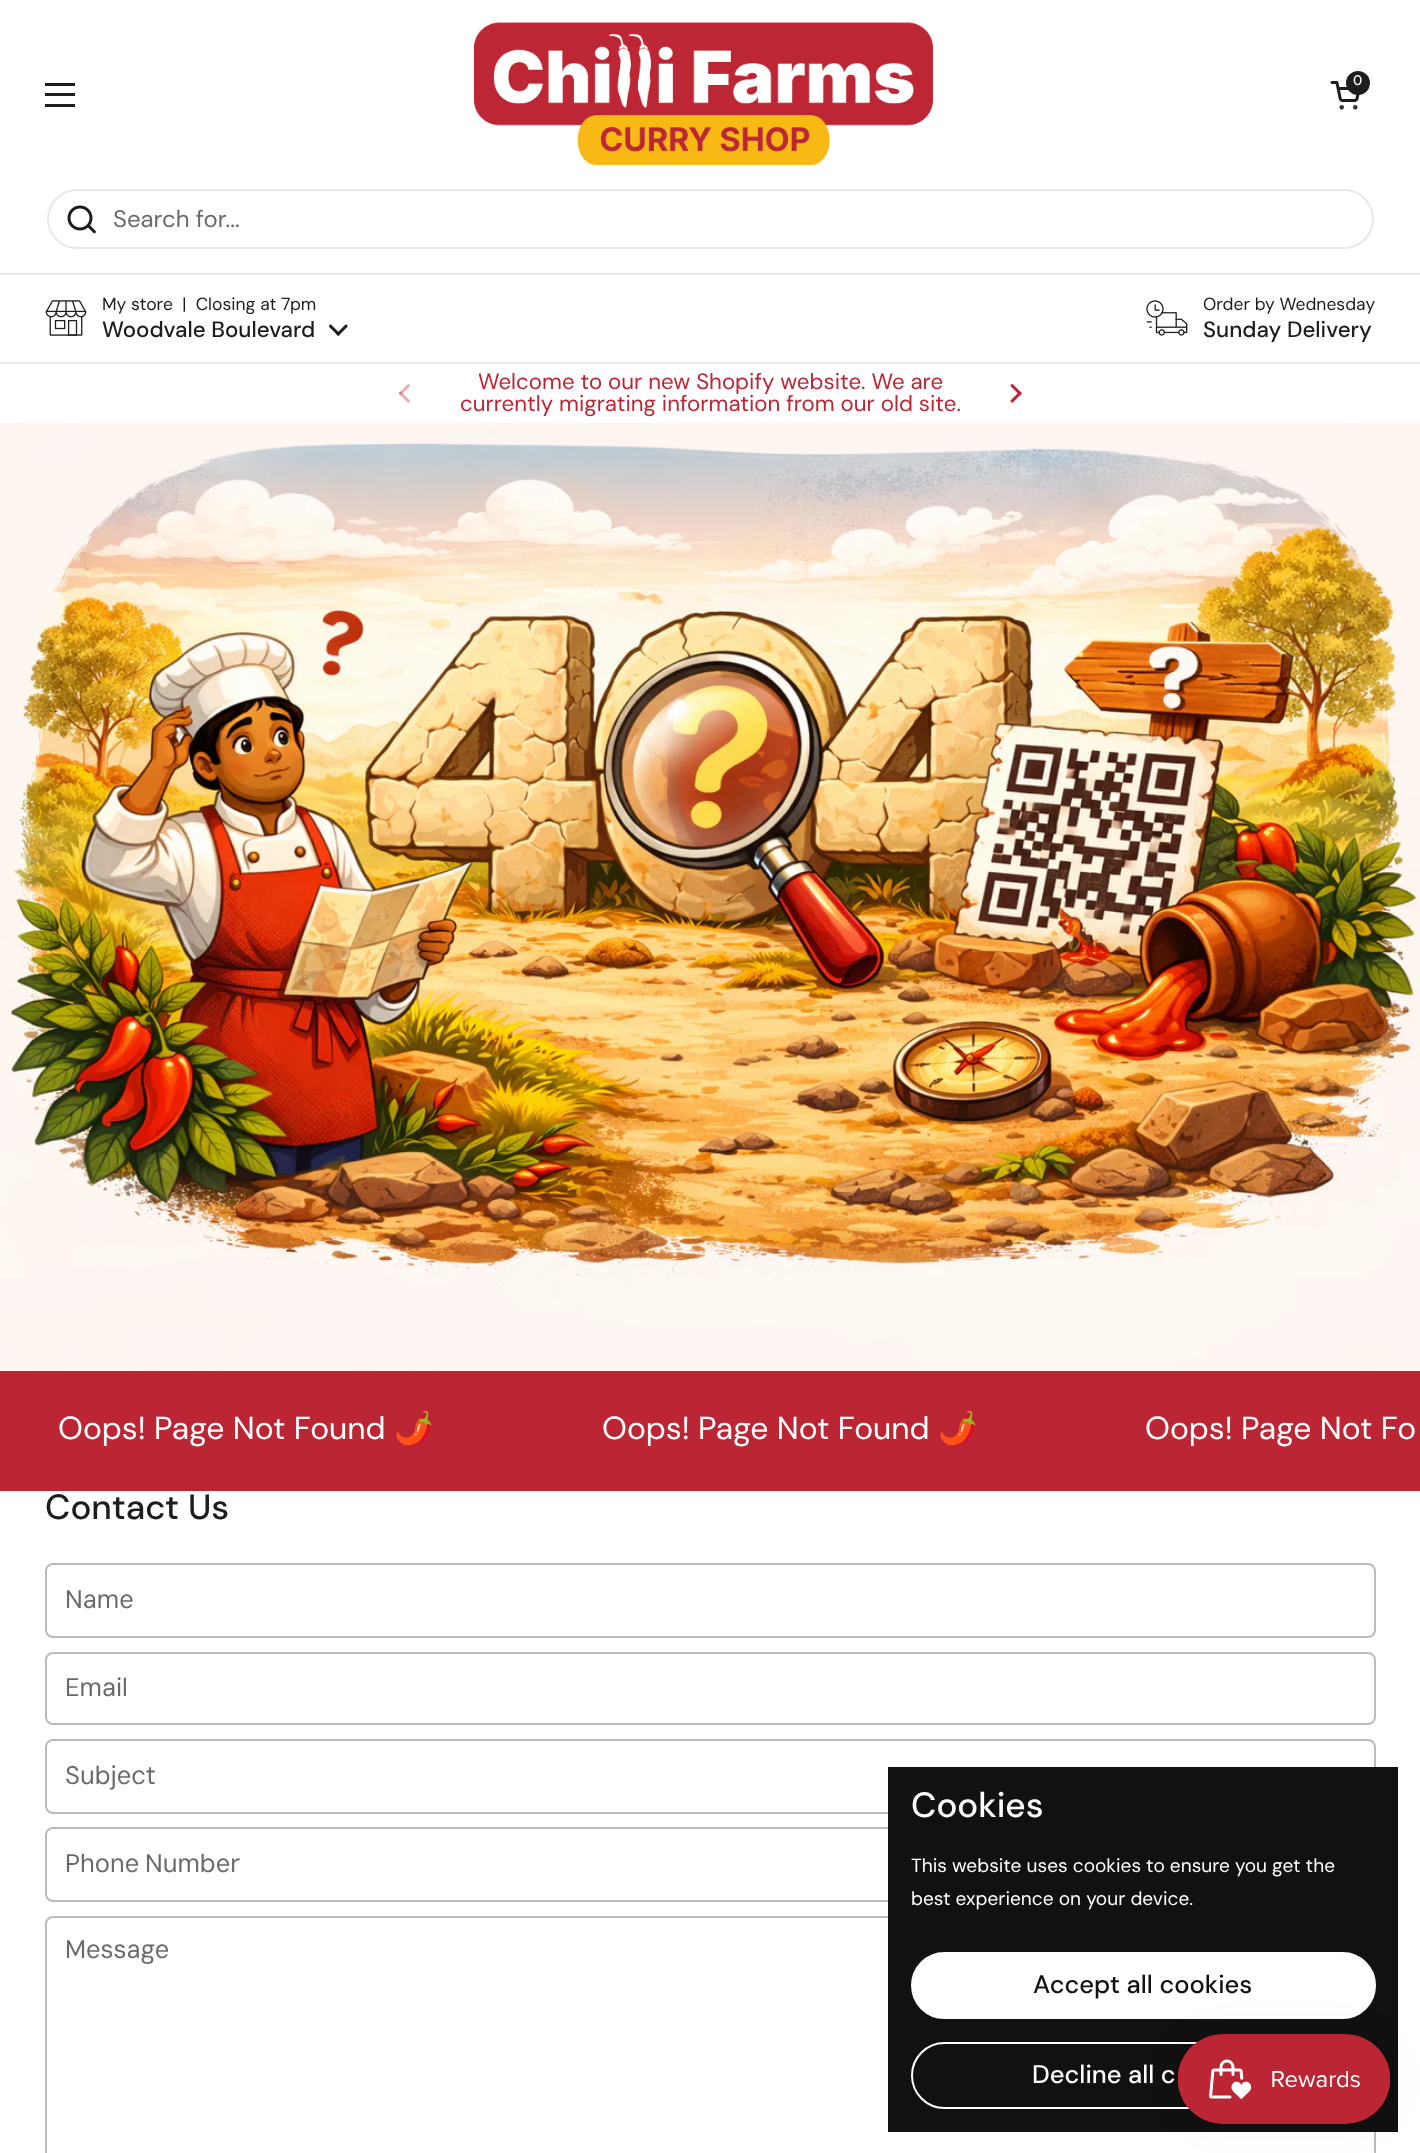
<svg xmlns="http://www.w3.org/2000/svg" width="1420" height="2153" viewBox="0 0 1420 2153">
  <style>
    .t1 { font: 500 14px 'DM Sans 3'; fill: #fff; }
    .t2 { font: 24px 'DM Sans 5'; fill: #6a6a6a; }
    .t3 { font: 17.5px 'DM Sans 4'; fill: #1d1d1d; }
    .t4 { font: 500 22.3px 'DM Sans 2'; fill: #1d1d1d; }
    .t5 { font: 22.3px DM Sans; fill: #bc2634; }
    .t6 { font: 31.9px 'DM Sans 2'; fill: #fff; }
    .t7 { font: 31.9px Noto Color Emoji; fill: #fff; }
    .t8 { font: 500 35px DM Sans; fill: #1d1d1d; }
    .t9 { font: 25.5px 'DM Sans 3'; fill: #6a6a6a; }
    .t10 { font: 500 35px DM Sans; fill: #fff; }
    .t11 { font: 19.1px 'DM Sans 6'; fill: #fff; }
    .t12 { font: 500 25.5px 'DM Sans 4'; fill: #111; }
    .t13 { font: 500 25.5px 'DM Sans 4'; fill: #fff; }
  </style>
  <rect width="100%" height="100%" fill="#fff"/>
  <image x="474" y="22" width="459" height="143" href="images/1.png"/>
  <image x="1330" y="81" width="30" height="29" href="images/2.png"/>
  <circle cx="1358" cy="83" r="12" fill="#1d1d1d"/>
  <text x="1353" y="85" class="t1">0</text>
  <rect x="45" y="83" width="30" height="3" fill="#1d1d1d"/>
  <rect x="45" y="93" width="30" height="3" fill="#1d1d1d"/>
  <rect x="45" y="104" width="30" height="3" fill="#1d1d1d"/>
  <rect x="0" y="273" width="1420" height="2" fill="#e8e8e8"/>
  <rect x="48" y="190" width="1325" height="58" rx="29" fill="none" stroke="#e8e8e8" stroke-width="2"/>
  <image x="67" y="205" width="29" height="29" href="images/3.png"/>
  <text x="113" y="227" class="t2">Search for...</text>
  <rect x="0" y="362" width="1420" height="2" fill="#e8e8e8"/>
  <image x="45" y="300" width="42" height="36" href="images/4.png"/>
  <text x="102" y="310" class="t3" xml:space="preserve">My store  |  Closing at 7pm</text>
  <text x="102" y="337" class="t4">Woodvale Boulevard</text>
  <image x="329" y="324" width="19" height="12" href="images/5.png"/>
  <image x="1146" y="300" width="42" height="36" href="images/6.png"/>
  <text x="1203" y="310" class="t3">Order by Wednesday</text>
  <text x="1203" y="337" class="t4">Sunday Delivery</text>
  <image x="398" y="383" width="12" height="20" href="images/7.png"/>
  <text x="478" y="389" class="t5">Welcome to our new Shopify website. We are</text>
  <text x="460" y="411" class="t5">currently migrating information from our old site.</text>
  <image x="1010" y="383" width="12" height="20" href="images/8.png"/>
  <image x="0" y="423" width="1420" height="948" href="images/9.png"/>
  <rect x="0" y="1371" width="1420" height="120" fill="#bc2634"/>
  <text x="58" y="1439" class="t6">Oops! Page Not Found</text>
  <text x="394" y="1439" class="t7">🌶️</text>
  <text x="602" y="1439" class="t6">Oops! Page Not Found</text>
  <text x="938" y="1439" class="t7">🌶️</text>
  <text x="1145" y="1439" class="t6">Oops! Page Not Fo</text>
  <text x="45" y="1519" class="t8">Contact Us</text>
  <rect x="46" y="1564" width="1329" height="73" rx="7" fill="none" stroke="#bbb" stroke-width="2"/>
  <text x="65" y="1608" class="t9">Name</text>
  <rect x="46" y="1653" width="1329" height="71" rx="7" fill="none" stroke="#bbb" stroke-width="2"/>
  <text x="65" y="1696" class="t9">Email</text>
  <rect x="46" y="1740" width="1329" height="73" rx="7" fill="none" stroke="#bbb" stroke-width="2"/>
  <text x="65" y="1784" class="t9">Subject</text>
  <rect x="46" y="1828" width="1329" height="73" rx="7" fill="none" stroke="#bbb" stroke-width="2"/>
  <text x="65" y="1872" word-spacing="-1" class="t9">Phone Number</text>
  <rect x="46" y="1917" width="1329" height="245" rx="7" fill="none" stroke="#bbb" stroke-width="2"/>
  <text x="65" y="1958" class="t9">Message</text>
  <rect x="888" y="1767" width="510" height="365" fill="#111"/>
  <text x="911" y="1817" class="t10">Cookies</text>
  <text x="911" y="1872" class="t11">This website uses cookies to ensure you get the</text>
  <text x="911" y="1905" class="t11">best experience on your device.</text>
  <rect x="912" y="1953" width="463" height="65" rx="32.5" fill="#fff" stroke="#fff" stroke-width="2"/>
  <text x="1033" y="1993" class="t12">Accept all cookies</text>
  <rect x="912" y="2043" width="463" height="65" rx="32.5" fill="none" stroke="#fff" stroke-width="2"/>
  <text x="1032" y="2083" class="t13">Decline all c</text>
  <rect x="1178" y="2034" width="213" height="90" rx="45" fill="#0000000d" filter="blur(19px)"/>
  <image x="1177" y="2034" width="214" height="90" href="images/10.png"/>
</svg>
